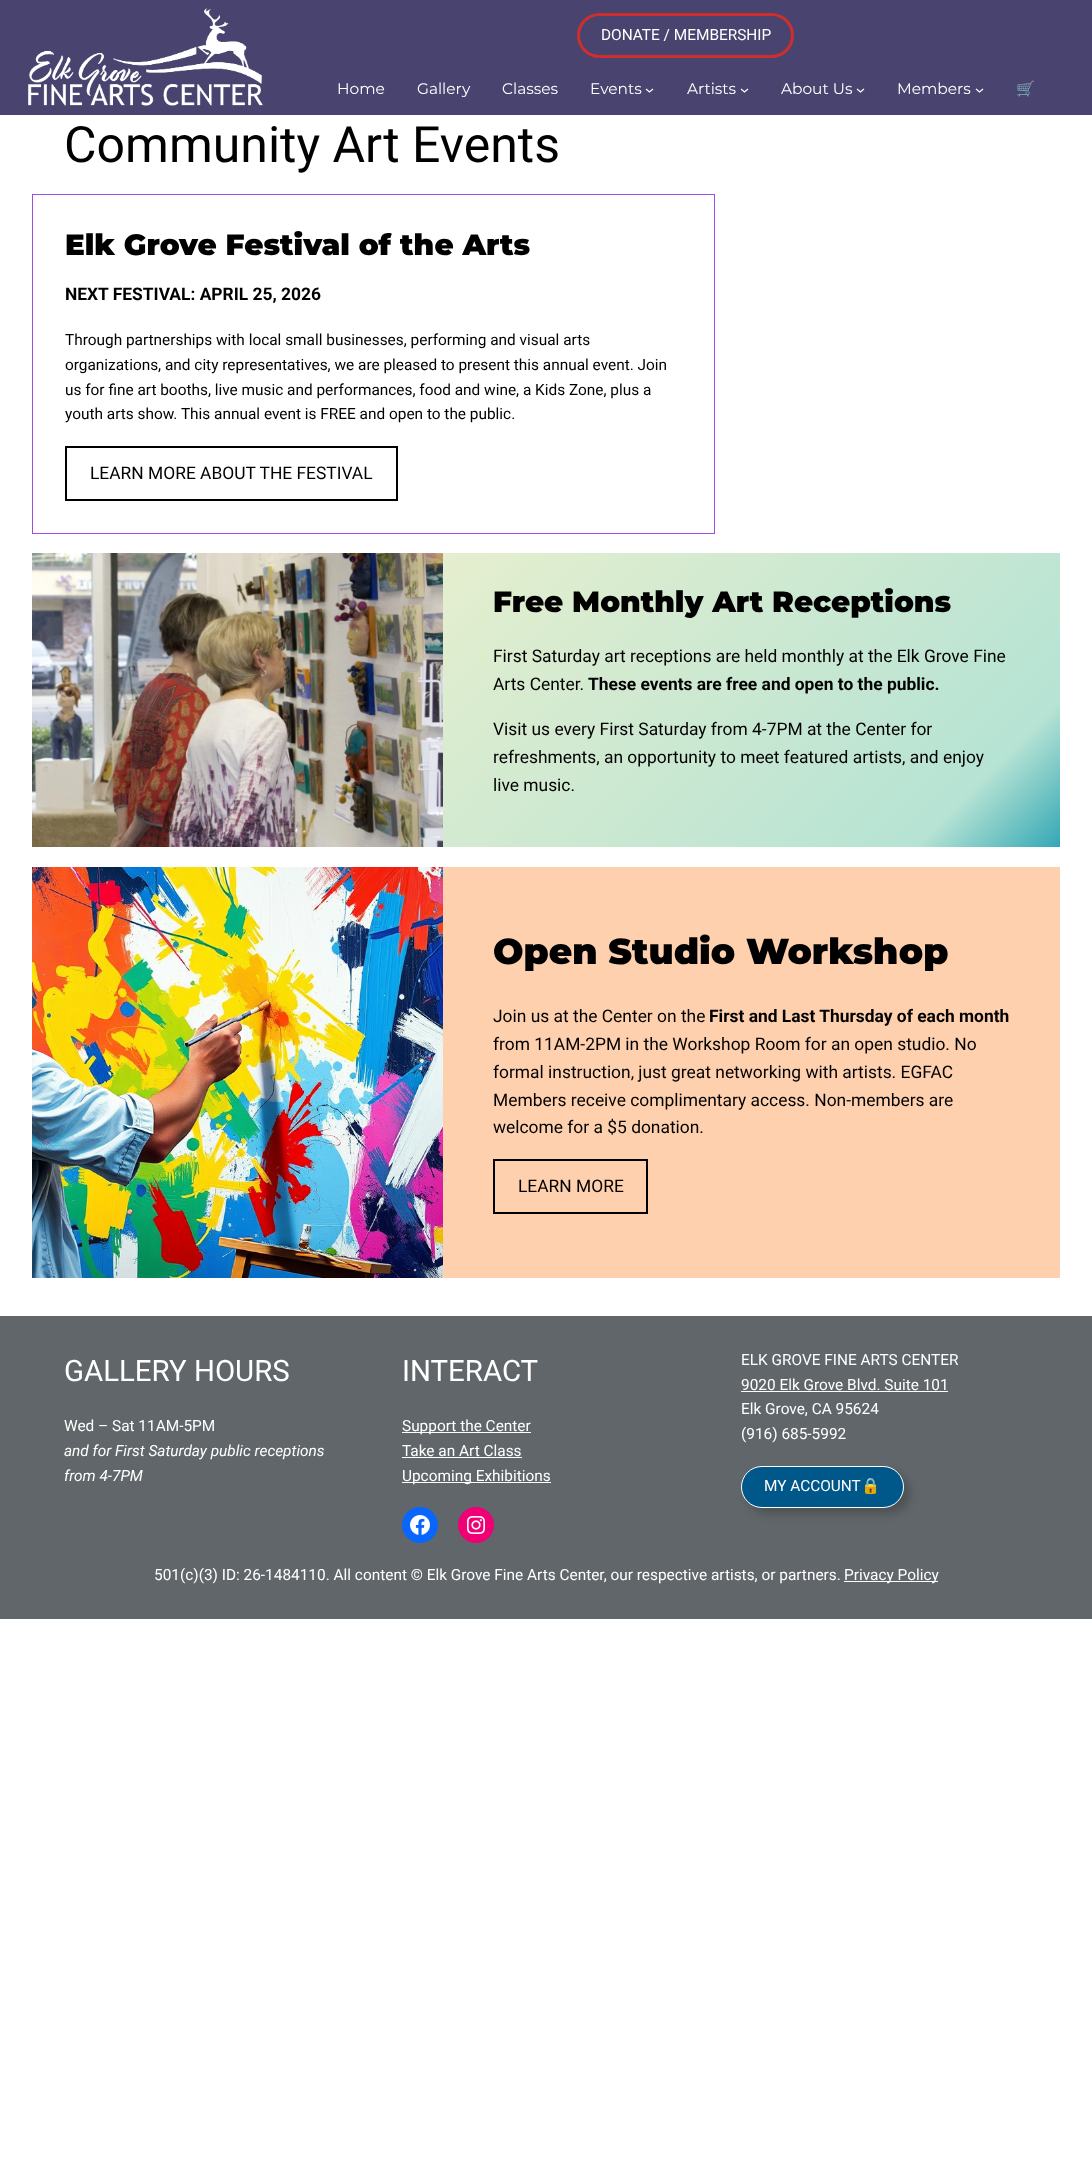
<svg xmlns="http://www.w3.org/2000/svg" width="1092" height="2168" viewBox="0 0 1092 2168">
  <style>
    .t1 { font: 15.4px Roboto; fill: #fff; }
    .t2 { font: 15.4px Montserrat; fill: #fff; }
    .t3 { font: 15.4px Noto Color Emoji; fill: #fff; }
    .t4 { font: 50px Roboto; fill: #000; }
    .t5 { font: 900 29.4px Montserrat; fill: #000; }
    .t6 { font: bold 17.4px Roboto; fill: #000; }
    .t7 { font: 15.4px Roboto; fill: #000; }
    .t8 { font: 17.4px Roboto; fill: #000; }
    .t9 { font: 900 36px Montserrat; fill: #000; }
    .t10 { font: 29.4px Roboto; fill: #fff; }
    .t11 { font: italic 15.4px Roboto; fill: #fff; }
  </style>
  <defs>
    <linearGradient id="g1" gradientUnits="userSpaceOnUse" x1="215" y1="370" x2="877" y2="1031"><stop offset="0" stop-color="#fff5cb"/><stop offset="0.89" stop-color="#b6e3d4"/><stop offset="1" stop-color="#33a7b5"/></linearGradient>
  </defs>
  <rect width="100%" height="100%" fill="#fff"/>
  <rect x="0" y="0" width="1092" height="115" fill="#49446f"/>
  <image x="28" y="8" width="235" height="98" href="images/1.png"/>
  <rect x="578.5" y="14.5" width="214" height="42" rx="21" fill="none" stroke="#cf2e2e" stroke-width="3"/>
  <text x="601" y="40" class="t1">DONATE / MEMBERSHIP</text>
  <text x="337" y="94" class="t2">Home</text>
  <text x="417" y="94" class="t2">Gallery</text>
  <text x="502" y="94" class="t2">Classes</text>
  <text x="590" y="94" class="t2">Events</text>
  <path d="M646 89L649.5 92L653 89" fill="none" stroke="#fff" stroke-width="1.2"/>
  <text x="687" y="94" class="t2">Artists</text>
  <path d="M741 89L744.5 92L748 89" fill="none" stroke="#fff" stroke-width="1.2"/>
  <text x="781" y="94" class="t2">About Us</text>
  <path d="M857 89L860.5 92L864 89" fill="none" stroke="#fff" stroke-width="1.2"/>
  <text x="897" y="94" class="t2">Members</text>
  <path d="M976 89L979.5 92L983 89" fill="none" stroke="#fff" stroke-width="1.2"/>
  <text x="1016" y="94" class="t3">🛒</text>
  <text x="64" y="162" class="t4">Community Art Events</text>
  <rect x="32.5" y="194.5" width="682" height="339" fill="none" stroke="#9b51e0"/>
  <text x="65" y="255" class="t5">Elk Grove Festival of the Arts</text>
  <text x="65" y="300" class="t6">NEXT FESTIVAL: APRIL 25, 2026</text>
  <text x="65" y="345" class="t7">Through partnerships with local small businesses, performing and visual arts</text>
  <text x="65" y="370" class="t7">organizations, and city representatives, we are pleased to present this annual event. Join</text>
  <text x="65" y="395" class="t7">us for fine art booths, live music and performances, food and wine, a Kids Zone, plus a</text>
  <text x="65" y="419" class="t7">youth arts show. This annual event is FREE and open to the public.</text>
  <rect x="66" y="447" width="331" height="53" fill="none" stroke="#000" stroke-width="2"/>
  <text x="90" y="479" class="t8">LEARN MORE ABOUT THE FESTIVAL</text>
  <rect x="443" y="553" width="617" height="294" fill="url(#g1)"/>
  <image x="32" y="553" width="411" height="294" href="images/2.png"/>
  <text x="493" y="612" class="t5">Free Monthly Art Receptions</text>
  <text x="493" y="662" class="t8">First Saturday art receptions are held monthly at the Elk Grove Fine</text>
  <text x="493" y="690" class="t8">Arts Center.</text>
  <text x="588" y="690" class="t6">These events are free and open to the public.</text>
  <text x="493" y="735" class="t8">Visit us every First Saturday from 4-7PM at the Center for</text>
  <text x="493" y="763" class="t8">refreshments, an opportunity to meet featured artists, and enjoy</text>
  <text x="493" y="791" class="t8">live music.</text>
  <rect x="443" y="867" width="617" height="411" fill="#ffd0ae"/>
  <image x="32" y="867" width="411" height="411" href="images/3.png"/>
  <text x="493" y="964" class="t9">Open Studio Workshop</text>
  <text x="493" y="1022" class="t8">Join us at the Center on the</text>
  <text x="709" y="1022" class="t6">First and Last Thursday of each month</text>
  <text x="493" y="1050" class="t8">from 11AM-2PM in the Workshop Room for an open studio. No</text>
  <text x="493" y="1078" class="t8">formal instruction, just great networking with artists. EGFAC</text>
  <text x="493" y="1106" class="t8">Members receive complimentary access. Non-members are</text>
  <text x="493" y="1133" class="t8">welcome for a $5 donation.</text>
  <rect x="494" y="1160" width="153" height="53" fill="none" stroke="#000" stroke-width="2"/>
  <text x="518" y="1192" class="t8">LEARN MORE</text>
  <rect x="0" y="1316" width="1092" height="303" fill="#60666a"/>
  <text x="64" y="1381" class="t10">GALLERY HOURS</text>
  <text x="64" y="1431" class="t1">Wed – Sat 11AM-5PM</text>
  <text x="64" y="1456" class="t11">and for First Saturday public receptions</text>
  <text x="64" y="1481" class="t11">from 4-7PM</text>
  <text x="402" y="1381" class="t10">INTERACT</text>
  <rect x="402" y="1432" width="129" height="1" fill="#fff"/>
  <text x="402" y="1431" class="t1">Support the Center</text>
  <text x="402" y="1456" class="t1">Take an Art Class</text>
  <rect x="402" y="1457" width="120" height="1" fill="#fff"/>
  <rect x="402" y="1482" width="149" height="1" fill="#fff"/>
  <text x="402" y="1481" class="t1">Upcoming Exhibitions</text>
  <circle cx="420" cy="1525" r="18" fill="#0866ff"/>
  <image x="410" y="1515" width="20" height="20" href="images/4.png"/>
  <circle cx="476" cy="1525" r="18" fill="#f00075"/>
  <image x="467" y="1516" width="18" height="18" href="images/5.png"/>
  <text x="741" y="1365" class="t1">ELK GROVE FINE ARTS CENTER</text>
  <text x="741" y="1390" class="t1">9020 Elk Grove Blvd. Suite 101</text>
  <rect x="741" y="1391" width="207" height="1" fill="#fff"/>
  <text x="741" y="1414" class="t1">Elk Grove, CA 95624</text>
  <text x="741" y="1439" class="t1">(916) 685-5992</text>
  <rect x="747" y="1472" width="163" height="42" rx="21" fill="#00000033" filter="blur(4.5px)"/>
  <rect x="741.5" y="1466.5" width="162" height="41" rx="20.5" fill="#00578a" stroke="#fff"/>
  <text x="764" y="1491" class="t1">MY ACCOUNT</text>
  <text x="861" y="1491" class="t3">🔒</text>
  <text x="154" y="1580" class="t1">501(c)(3) ID: 26-1484110. All content © Elk Grove Fine Arts Center, our respective artists, or partners.</text>
  <rect x="844" y="1581" width="94" height="1" fill="#fff"/>
  <text x="844" y="1580" class="t1">Privacy Policy</text>
</svg>
